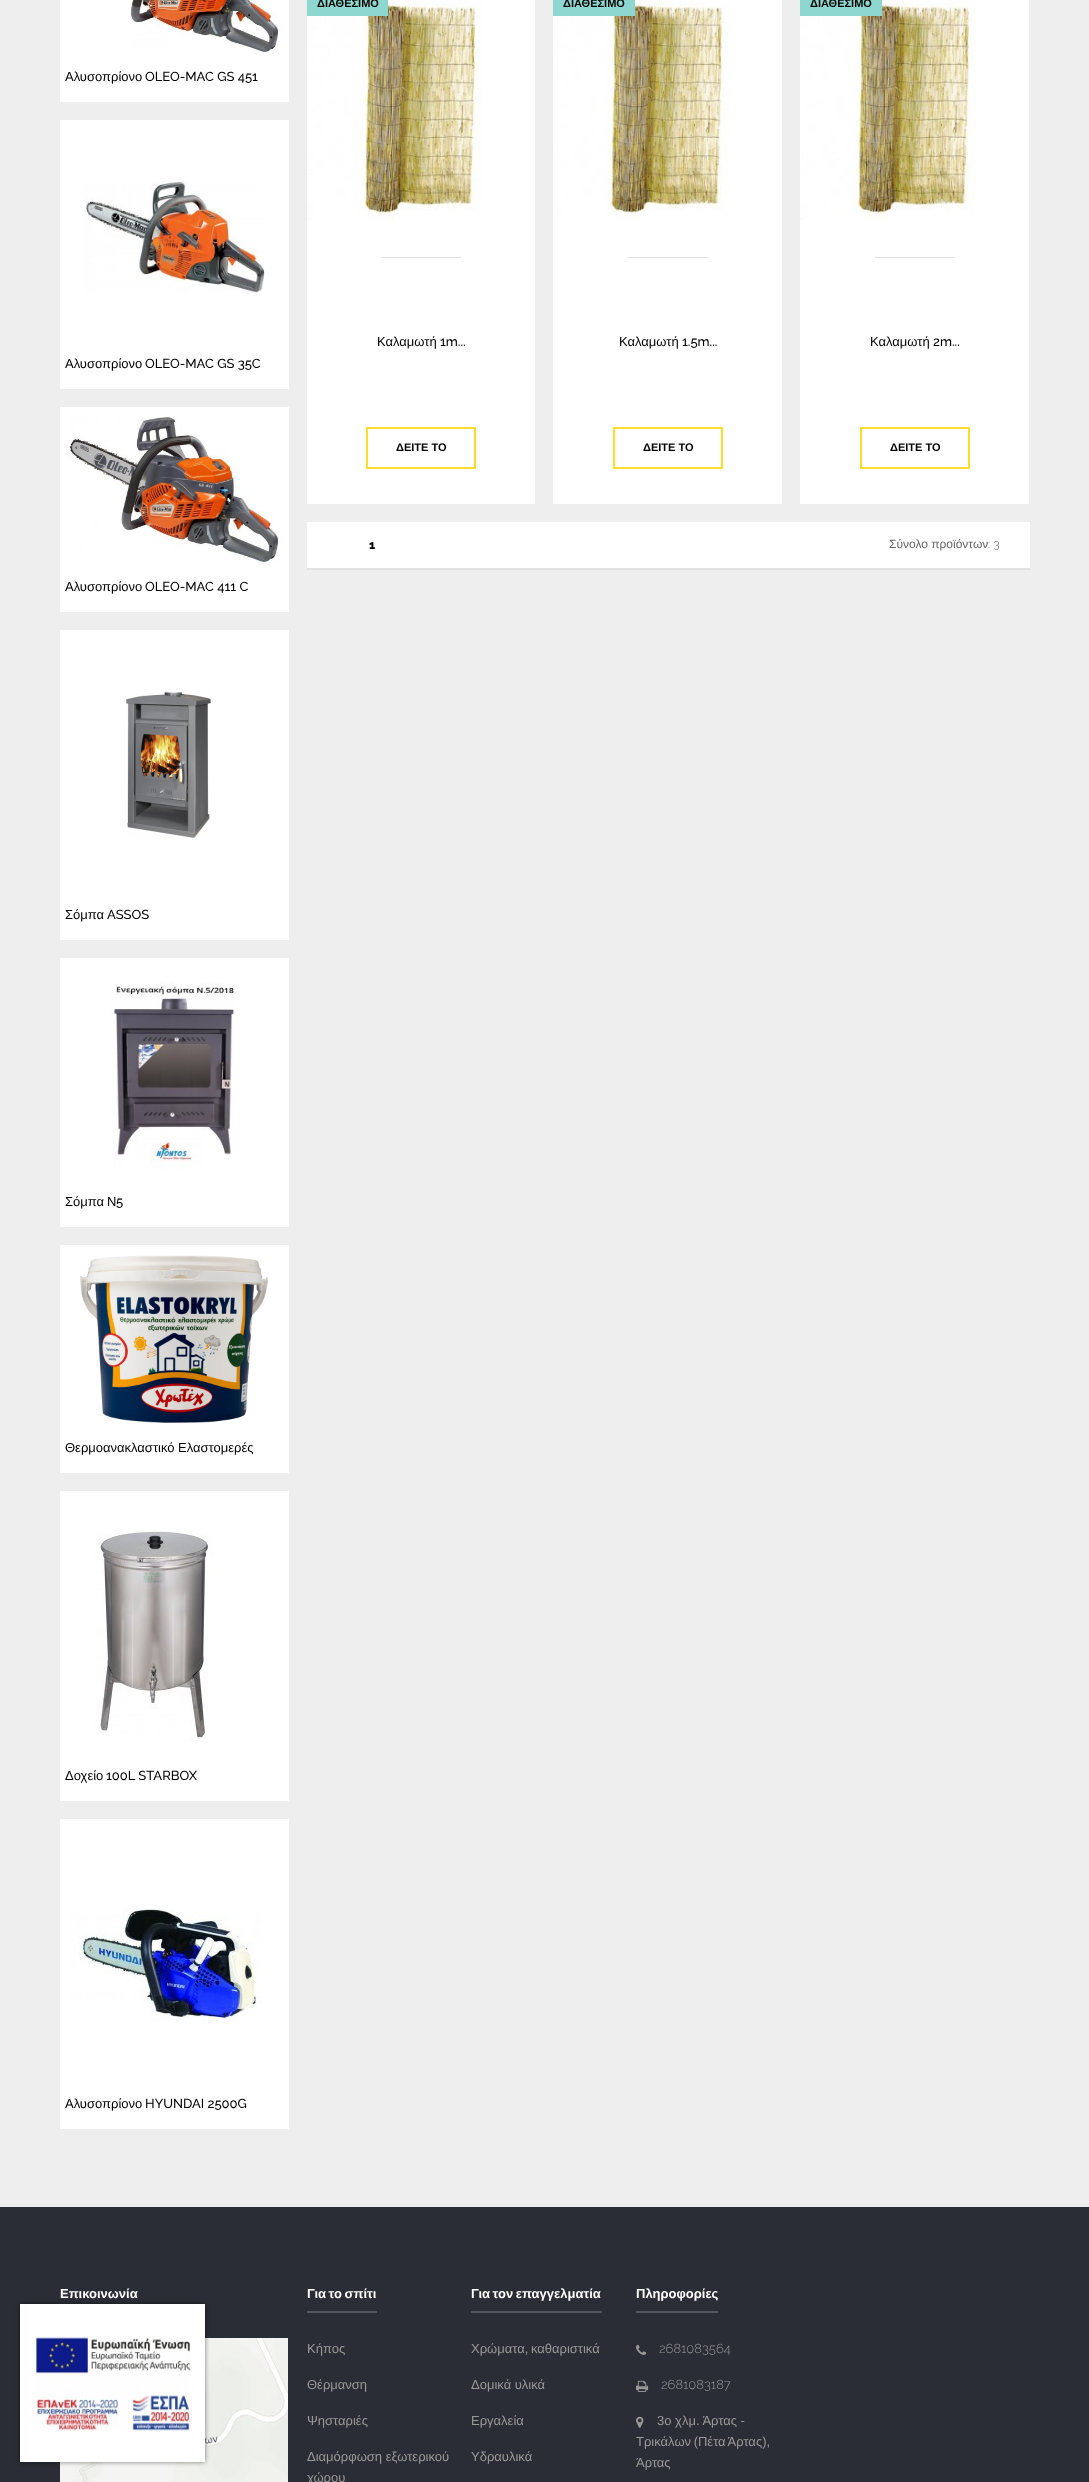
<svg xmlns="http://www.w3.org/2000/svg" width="1089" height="2482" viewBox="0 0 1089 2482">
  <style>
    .t1 { font: 13px Liberation Sans; fill: #000; }
    .t2 { font: 500 13px Raleway; fill: #000; }
    .t3 { font: bold 11px Liberation Sans; fill: #000; }
    .t4 { font: 800 12px Raleway; fill: #000; }
    .t5 { font: 12px Liberation Sans; fill: #666; }
    .t6 { font: 300 12px Raleway; fill: #666; }
    .t7 { font: bold 13px Liberation Sans; fill: #fff; }
    .t8 { font: 13px Liberation Sans; fill: #999; }
    .t9 { font: 300 13px Raleway; fill: #999; }
  </style>
  <rect width="100%" height="100%" fill="#eee"/>
  <rect x="60" y="0" width="229" height="102" fill="#fff"/>
  <image x="130" y="0" width="148" height="52" href="images/1.png"/>
  <text x="65" y="81" class="t1">Αλυσοπρίονο</text>
  <text x="145" y="81" class="t2">OLEO-MAC GS 451</text>
  <rect x="60" y="120" width="229" height="269" fill="#fff"/>
  <image x="84" y="181" width="181" height="112" href="images/2.png"/>
  <text x="65" y="368" class="t1">Αλυσοπρίονο</text>
  <text x="145" y="368" class="t2">OLEO-MAC GS 35C</text>
  <rect x="60" y="407" width="229" height="205" fill="#fff"/>
  <image x="70" y="417" width="208" height="145" href="images/3.png"/>
  <text x="65" y="591" class="t1">Αλυσοπρίονο</text>
  <text x="145" y="591" class="t2">OLEO-MAC 411 C</text>
  <rect x="60" y="630" width="229" height="310" fill="#fff"/>
  <image x="126" y="692" width="85" height="146" href="images/4.png"/>
  <text x="65" y="919" class="t1">Σόμπα</text>
  <text x="107" y="919" class="t2">ASSOS</text>
  <rect x="60" y="958" width="229" height="269" fill="#fff"/>
  <image x="110" y="982" width="125" height="187" href="images/5.png"/>
  <text x="65" y="1206" class="t1">Σόμπα</text>
  <text x="107" y="1206" class="t1">Ν</text>
  <text x="116" y="1206" class="t2">5</text>
  <rect x="60" y="1245" width="229" height="228" fill="#fff"/>
  <image x="80" y="1255" width="188" height="168" href="images/6.png"/>
  <text x="65" y="1452" class="t1">Θερμοανακλαστικό Ελαστομερές</text>
  <rect x="60" y="1491" width="229" height="310" fill="#fff"/>
  <image x="95" y="1531" width="118" height="210" href="images/7.png"/>
  <text x="65" y="1780" class="t1">Δοχείο</text>
  <text x="106" y="1780" class="t2">100L STARBOX</text>
  <rect x="60" y="1819" width="229" height="310" fill="#fff"/>
  <image x="70" y="1908" width="192" height="113" href="images/8.png"/>
  <text x="65" y="2108" class="t1">Αλυσοπρίονο</text>
  <text x="145" y="2108" class="t2">HYUNDAI 2500G</text>
  <rect x="307" y="0" width="228" height="504" fill="#fff"/>
  <image x="307" y="0" width="175" height="220" href="images/9.png"/>
  <rect x="307" y="0" width="81" height="16" fill="#8ed7d0"/>
  <text x="317" y="7" class="t3">ΔΙΑΘΕΣΙΜΟ</text>
  <rect x="381" y="257" width="80" height="1" fill="#e1e1e1"/>
  <text x="377" y="346" class="t1">Καλαμωτή</text>
  <text x="440" y="346" class="t2">1m...</text>
  <rect x="367" y="428" width="108" height="40" fill="none" stroke="#fcdd2d" stroke-width="2"/>
  <text x="396" y="451" class="t3">ΔΕΙΤΕ ΤΟ</text>
  <rect x="553" y="0" width="229" height="504" fill="#fff"/>
  <image x="553" y="0" width="176" height="220" href="images/10.png"/>
  <rect x="553" y="0" width="82" height="16" fill="#8ed7d0"/>
  <text x="563" y="7" class="t3">ΔΙΑΘΕΣΙΜΟ</text>
  <rect x="628" y="257" width="80" height="1" fill="#e1e1e1"/>
  <text x="619" y="346" class="t1">Καλαμωτή</text>
  <text x="682" y="346" class="t2">1.5m...</text>
  <rect x="614" y="428" width="108" height="40" fill="none" stroke="#fcdd2d" stroke-width="2"/>
  <text x="643" y="451" class="t3">ΔΕΙΤΕ ΤΟ</text>
  <rect x="800" y="0" width="229" height="504" fill="#fff"/>
  <image x="800" y="0" width="176" height="220" href="images/10.png"/>
  <rect x="800" y="0" width="82" height="16" fill="#8ed7d0"/>
  <text x="810" y="7" class="t3">ΔΙΑΘΕΣΙΜΟ</text>
  <rect x="875" y="257" width="80" height="1" fill="#e1e1e1"/>
  <text x="870" y="346" class="t1">Καλαμωτή</text>
  <text x="933" y="346" class="t2">2m...</text>
  <rect x="861" y="428" width="108" height="40" fill="none" stroke="#fcdd2d" stroke-width="2"/>
  <text x="890" y="451" class="t3">ΔΕΙΤΕ ΤΟ</text>
  <rect x="307" y="522" width="723" height="46" fill="#fff"/>
  <rect x="307" y="568" width="723" height="2" fill="#e1e1e1"/>
  <text x="369" y="549" class="t4">1</text>
  <text x="889" y="548" class="t5">Σύνολο προϊόντων</text>
  <text x="988" y="548" class="t6">: 3</text>
  <rect x="0" y="2207" width="1089" height="275" fill="#2b2d36"/>
  <text x="60" y="2298" class="t7">Επικοινωνία</text>
  <image x="60" y="2338" width="228" height="144" href="images/11.png"/>
  <rect x="307" y="2311" width="70" height="2" fill="#55575e"/>
  <text x="307" y="2298" word-spacing="-1" class="t7">Για το σπίτι</text>
  <text x="307" y="2353" class="t8">Κήπος</text>
  <text x="307" y="2389" class="t8">Θέρμανση</text>
  <text x="307" y="2425" class="t8">Ψησταριές</text>
  <text x="307" y="2461" class="t8">Διαμόρφωση εξωτερικού</text>
  <text x="307" y="2482" class="t8">χώρου</text>
  <rect x="471" y="2311" width="131" height="2" fill="#55575e"/>
  <text x="471" y="2298" word-spacing="-1" class="t7">Για τον επαγγελματία</text>
  <text x="471" y="2353" word-spacing="-1" class="t8">Χρώματα, καθαριστικά</text>
  <text x="471" y="2389" class="t8">Δομικά υλικά</text>
  <text x="471" y="2425" class="t8">Εργαλεία</text>
  <text x="471" y="2461" class="t8">Υδραυλικά</text>
  <rect x="636" y="2311" width="82" height="2" fill="#55575e"/>
  <text x="636" y="2298" class="t7">Πληροφορίες</text>
  <image x="636" y="2344" width="11" height="11" href="images/12.png"/>
  <text x="659" y="2353" class="t9">2681083564</text>
  <image x="636" y="2380" width="13" height="12" href="images/13.png"/>
  <text x="661" y="2389" class="t9">2681083187</text>
  <image x="636" y="2416" width="8" height="12" href="images/14.png"/>
  <text x="657" y="2425" class="t8">3o χλμ. Άρτας -</text>
  <text x="636" y="2446" word-spacing="-1" class="t8">Τρικάλων (Πέτα Άρτας),</text>
  <text x="636" y="2467" class="t8">Άρτας</text>
  <rect x="20" y="2304" width="185" height="158" fill="#00000080" filter="blur(2.5px)"/>
  <rect x="20" y="2304" width="185" height="158" fill="#fff"/>
  <image x="35" y="2336" width="156" height="95" href="images/15.png"/>
</svg>
